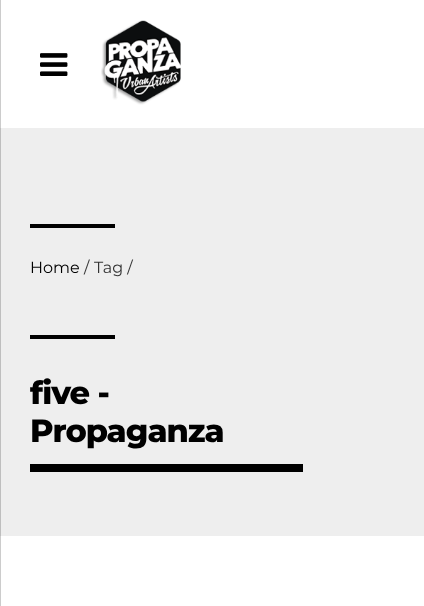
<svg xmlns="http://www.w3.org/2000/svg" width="424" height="606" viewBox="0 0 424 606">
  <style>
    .t1 { font: 16px Montserrat; fill: #000; }
    .t2 { font: 16px Montserrat; fill: #333; }
    .t3 { font: 800 32px Montserrat; letter-spacing: -1px; fill: #000; }
  </style>
  <rect width="100%" height="100%" fill="#fff"/>
  <rect x="0" y="0" width="1" height="606" fill="#ccc"/>
  <image x="40" y="53" width="28" height="23" href="images/1.png"/>
  <image x="101" y="20" width="80" height="85" href="images/2.png"/>
  <rect x="1" y="128" width="423" height="408" fill="#eee"/>
  <rect x="0" y="128" width="1" height="408" fill="#bebebe"/>
  <rect x="30" y="224" width="85" height="4" fill="#000"/>
  <text x="30" y="273" class="t1">Home</text>
  <text x="84" y="273" class="t2">/</text>
  <text x="94" y="273" class="t2">Tag /</text>
  <rect x="30" y="335" width="85" height="4" fill="#000"/>
  <text x="30" y="404" class="t3">five -</text>
  <text x="30" y="442" class="t3">Propaganza</text>
  <rect x="30" y="464" width="273" height="8" fill="#000"/>
</svg>
